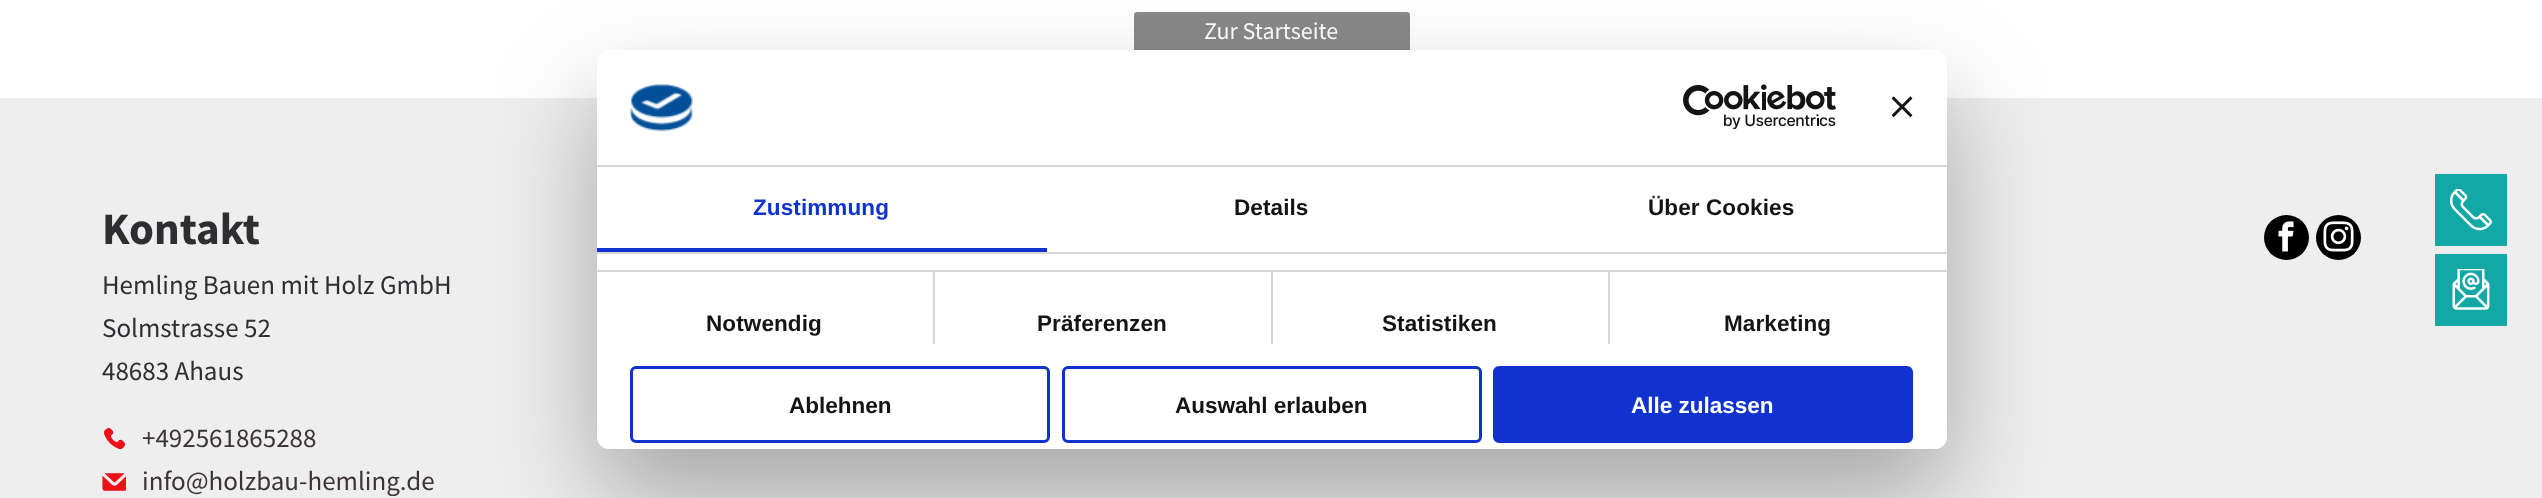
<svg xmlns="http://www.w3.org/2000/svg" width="2542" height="498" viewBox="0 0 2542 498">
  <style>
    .t1 { font: 24px Source Sans Pro; fill: #fff; }
    .t2 { font: bold 45px Source Sans Pro; fill: #2d2e32; }
    .t3 { font: 27px Source Sans Pro; fill: #2d2e32; }
    .t4 { font: 27px Source Sans Pro; fill: #3c3334; }
    .t5 { font: bold 22.5px Liberation Sans; letter-spacing: 0.1px; fill: #1032cf; }
    .t6 { font: bold 22.5px Liberation Sans; letter-spacing: 0.1px; fill: #141414; }
    .t7 { font: bold 22.5px Liberation Sans; fill: #141414; }
    .t8 { font: bold 22.5px Liberation Sans; fill: #fff; }
  </style>
  <rect width="100%" height="100%" fill="#fff"/>
  <rect x="1134" y="12" width="276" height="56" rx="3" fill="#898989"/>
  <text x="1204" y="39" class="t1">Zur Startseite</text>
  <rect x="0" y="98" width="2542" height="400" fill="#eee"/>
  <text x="102" y="244" class="t2">Kontakt</text>
  <text x="102" y="294" class="t3">Hemling Bauen mit Holz GmbH</text>
  <text x="102" y="337" class="t3">Solmstrasse 52</text>
  <text x="102" y="380" class="t3">48683 Ahaus</text>
  <image x="103" y="427" width="23" height="23" href="images/1.png"/>
  <text x="142" y="447" class="t4">+492561865288</text>
  <image x="102" y="473" width="24" height="18" href="images/2.png"/>
  <text x="142" y="490" class="t4">info@holzbau-hemling.de</text>
  <circle cx="2286.5" cy="237.5" r="22.5" fill="#000"/>
  <image x="2278" y="221" width="16" height="31" href="images/3.png"/>
  <circle cx="2338.5" cy="237.5" r="22.5" fill="#000"/>
  <image x="2323" y="221" width="31" height="31" href="images/4.png"/>
  <rect x="2435" y="174" width="72" height="72" fill="#13a7a6"/>
  <image x="2450" y="189" width="42" height="42" href="images/5.png"/>
  <rect x="2435" y="254" width="72" height="72" fill="#13a7a6"/>
  <image x="2452" y="269" width="38" height="41" href="images/6.png"/>
  <rect x="597" y="98" width="1350" height="399" rx="12" fill="#0000004d" filter="blur(51px)"/>
  <rect x="597" y="50" width="1350" height="399" rx="12" fill="#fff"/>
  <rect x="597" y="165" width="1350" height="2" fill="#d6d6d6"/>
  <image x="630" y="84" width="63" height="48" href="images/7.png"/>
  <image x="1683" y="84" width="153" height="45" href="images/8.png"/>
  <image x="1892" y="96" width="21" height="21" href="images/9.png"/>
  <rect x="597" y="252" width="1350" height="2" fill="#d6d6d6"/>
  <rect x="597" y="248" width="450" height="4" fill="#1032cf"/>
  <text x="753" y="215" class="t5">Zustimmung</text>
  <text x="1234" y="215" class="t6">Details</text>
  <text x="1648" y="215" class="t6">Über Cookies</text>
  <rect x="597" y="270" width="1350" height="2" fill="#d6d6d6"/>
  <rect x="933" y="272" width="2" height="72" fill="#d6d6d6"/>
  <text x="706" y="331" class="t6">Notwendig</text>
  <rect x="1271" y="272" width="2" height="72" fill="#d6d6d6"/>
  <text x="1037" y="331" class="t6">Präferenzen</text>
  <rect x="1608" y="272" width="2" height="72" fill="#d6d6d6"/>
  <text x="1382" y="331" class="t6">Statistiken</text>
  <text x="1724" y="331" class="t6">Marketing</text>
  <rect x="631.5" y="367.5" width="417" height="74" rx="4.5" fill="none" stroke="#1032cf" stroke-width="3"/>
  <text x="789" y="413" class="t7">Ablehnen</text>
  <rect x="1063.5" y="367.5" width="417" height="74" rx="4.5" fill="none" stroke="#1032cf" stroke-width="3"/>
  <text x="1175" y="413" class="t7">Auswahl erlauben</text>
  <rect x="1494.5" y="367.5" width="417" height="74" rx="4.5" fill="#1032cf" stroke="#1032cf" stroke-width="3"/>
  <text x="1631" y="413" class="t8">Alle zulassen</text>
  <rect x="1936" y="448" width="2" height="1" fill="#fff"/>
</svg>
